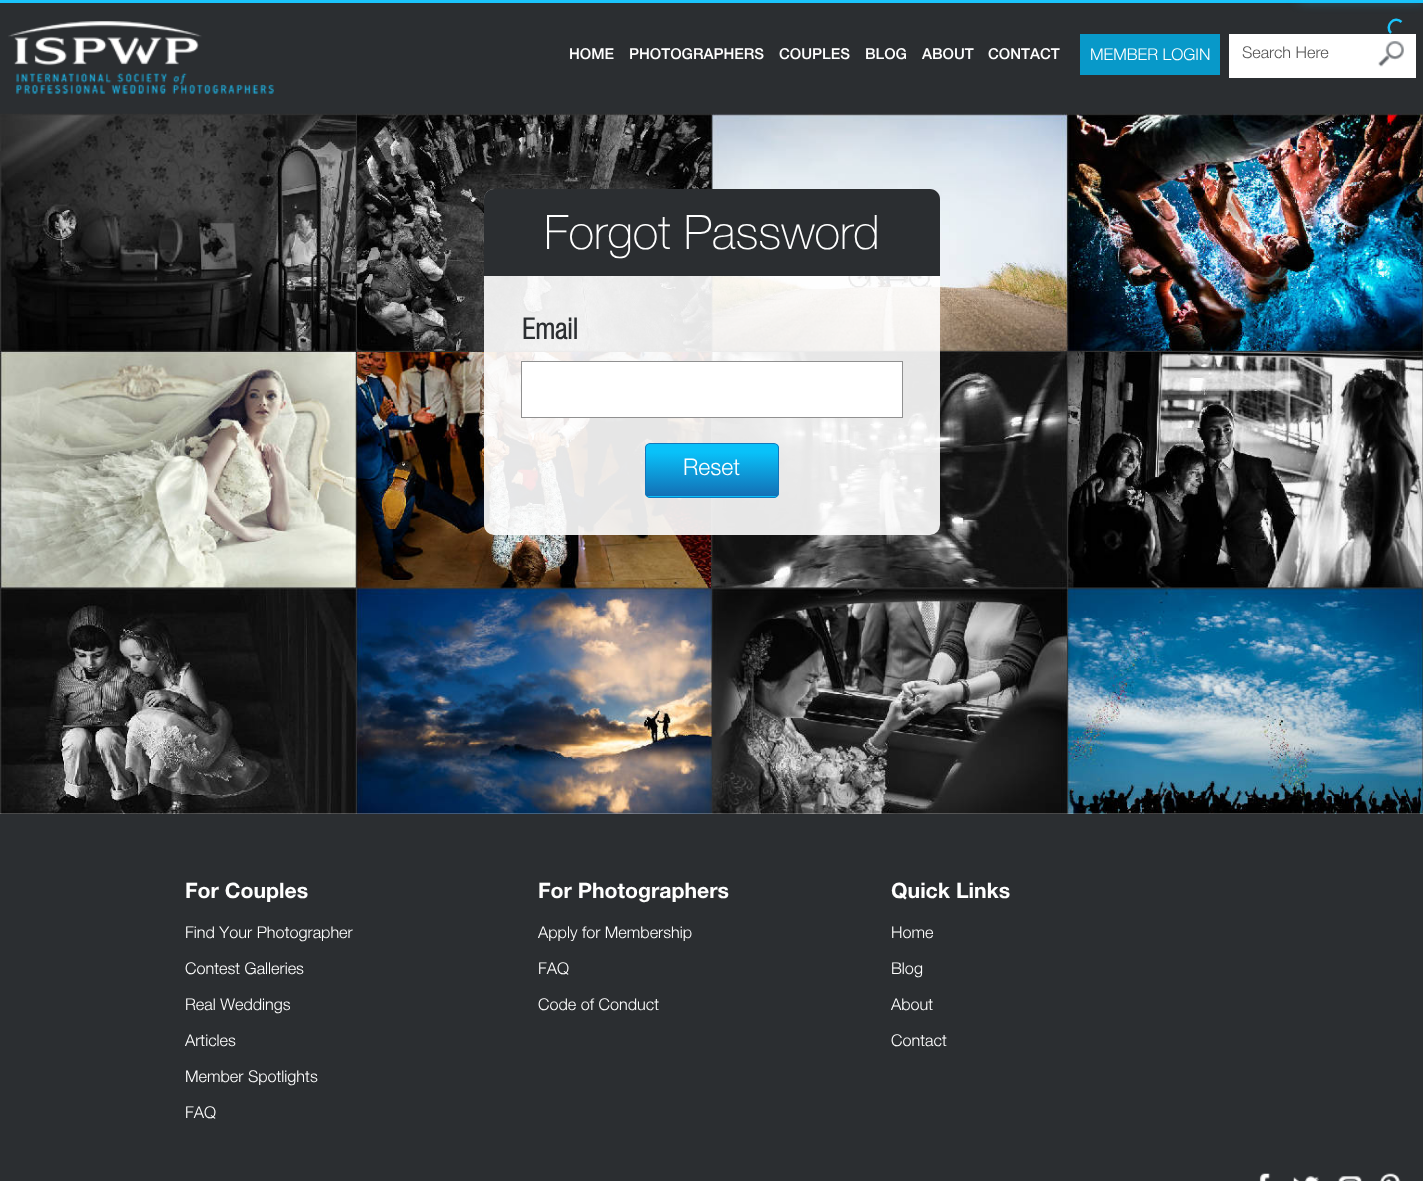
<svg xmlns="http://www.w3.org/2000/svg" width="1423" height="1181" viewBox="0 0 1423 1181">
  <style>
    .t1 { font: 500 15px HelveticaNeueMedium; fill: #fff; }
    .t2 { font: 300 16.25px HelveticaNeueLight; fill: #fff; }
    .t3 { font: 300 16.25px Helvetica Neue; fill: #555; }
    .t4 { font: 100 47.5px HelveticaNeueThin; fill: #fff; }
    .t5 { font: bold 29px Helvetica Neue; fill: #2b2e31; }
    .t6 { font: 300 23px Helvetica Neue; fill: #fff; }
    .t7 { font: bold 21.25px 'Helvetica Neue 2'; fill: #fff; }
  </style>
  <defs>
    <clipPath id="clip1"><rect x="645" y="443" width="134" height="55" rx="5"/></clipPath>
    <linearGradient id="g1" gradientUnits="userSpaceOnUse" x1="712" y1="444" x2="712" y2="496"><stop offset="0.16" stop-color="#09c1f9"/><stop offset="1" stop-color="#136fb5"/></linearGradient>
    <linearGradient id="g2" gradientUnits="userSpaceOnUse" x1="712" y1="496" x2="712" y2="549"><stop offset="0.16" stop-color="#09c1f9"/><stop offset="1" stop-color="#136fb5"/></linearGradient>
  </defs>
  <rect width="100%" height="100%" fill="#fff"/>
  <rect x="0" y="0" width="1423" height="3" fill="#1ac4fc"/>
  <rect x="0" y="3" width="1423" height="111" fill="#2b2e31"/>
  <rect x="1299" y="-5" width="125" height="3" fill="#1ac4fc" filter="blur(6.5px)"/>
  <path d="M1391 33C1384 26 1394.5 15 1401.5 22" fill="none" stroke="#1ac4fc" stroke-width="2.5"/>
  <image x="8" y="21" width="266" height="73" href="images/1.png"/>
  <text x="569" y="59" class="t1">HOME</text>
  <text x="629" y="59" class="t1">PHOTOGRAPHERS</text>
  <text x="779" y="59" class="t1">COUPLES</text>
  <text x="865" y="59" class="t1">BLOG</text>
  <text x="922" y="59" class="t1">ABOUT</text>
  <text x="988" y="59" class="t1">CONTACT</text>
  <rect x="1080" y="34" width="140" height="41" fill="#0899c9"/>
  <text x="1090" y="60" class="t2">MEMBER LOGIN</text>
  <rect x="1229" y="34" width="187" height="44" fill="#fff"/>
  <text x="1242" y="58" class="t3">Search Here</text>
  <image x="1378" y="41" width="26" height="26" href="images/2.png"/>
  <image x="0" y="113" width="1423" height="701" href="images/3.png"/>
  <rect x="484" y="189" width="456" height="346" rx="10" fill="#ffffffe6"/>
  <path d="M494 189H930C935.5 189 940 193.5 940 199V276H484V199C484 193.5 488.5 189 494 189Z" fill="#2b2e31"/>
  <text x="544" y="249" class="t4">Forgot Password</text>
  <text x="522" y="339" class="t5">Email</text>
  <rect x="521.5" y="361.5" width="381" height="56" fill="#fff" stroke="#909090"/>
  <g clip-path="url(#clip1)">
    <rect x="645" y="444" width="134" height="52" fill="url(#g1)"/>
    <rect x="645" y="496" width="134" height="2" fill="url(#g2)"/>
  </g>
  <rect x="645.5" y="443.5" width="133" height="54" rx="4.5" fill="none" stroke="#1477ba"/>
  <text x="683" y="475" class="t6">Reset</text>
  <rect x="0" y="814" width="1423" height="367" fill="#2b2e31"/>
  <text x="185" y="898" class="t7">For Couples</text>
  <text x="185" y="938" class="t2">Find Your Photographer</text>
  <text x="185" y="974" class="t2">Contest Galleries</text>
  <text x="185" y="1010" class="t2">Real Weddings</text>
  <text x="185" y="1046" class="t2">Articles</text>
  <text x="185" y="1082" class="t2">Member Spotlights</text>
  <text x="185" y="1118" class="t2">FAQ</text>
  <text x="538" y="898" class="t7">For Photographers</text>
  <text x="538" y="938" class="t2">Apply for Membership</text>
  <text x="538" y="974" class="t2">FAQ</text>
  <text x="538" y="1010" class="t2">Code of Conduct</text>
  <text x="891" y="898" class="t7">Quick Links</text>
  <text x="891" y="938" class="t2">Home</text>
  <text x="891" y="974" class="t2">Blog</text>
  <text x="891" y="1010" class="t2">About</text>
  <text x="891" y="1046" class="t2">Contact</text>
  <image x="1259" y="1173" width="12" height="8" href="images/4.png"/>
  <image x="1293" y="1176" width="26" height="5" href="images/5.png"/>
  <image x="1338" y="1176" width="24" height="5" href="images/6.png"/>
  <image x="1380" y="1173" width="21" height="8" href="images/7.png"/>
</svg>
